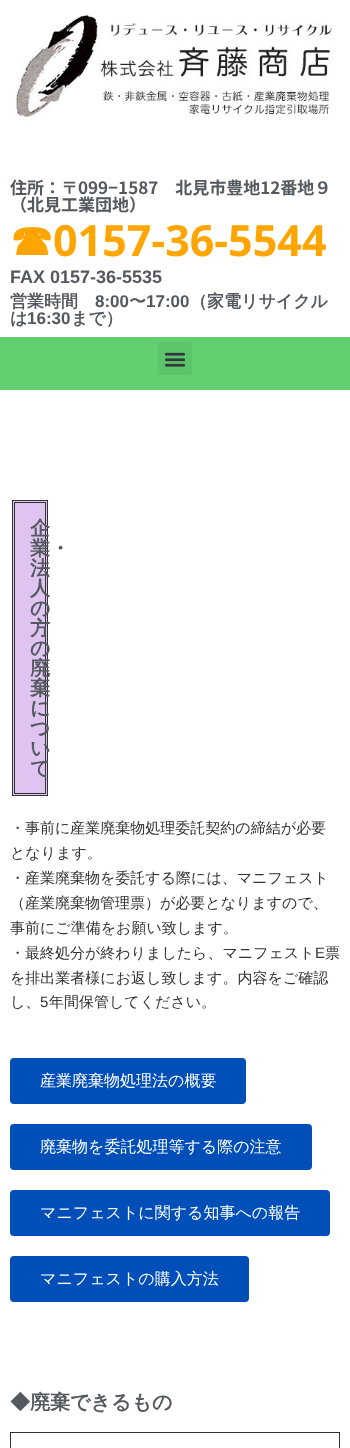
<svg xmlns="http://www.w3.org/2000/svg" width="350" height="1448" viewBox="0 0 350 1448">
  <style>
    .t1 { font: bold 17px Noto Sans JP; fill: #54595f; }
    .t2 { font: bold 43px WenQuanYi Zen Hei; fill: #ffa500; }
    .t3 { font: bold 43px Noto Sans; fill: #ffa500; }
    .t4 { font: bold 18px Liberation Sans; fill: #54595f; }
    .t5 { font: bold 17px WenQuanYi Zen Hei; fill: #54595f; }
    .t6 { font: bold 17px Liberation Sans; fill: #54595f; }
    .t7 { font: bold 20px WenQuanYi Zen Hei; fill: #54595f; }
    .t8 { font: 500 15px WenQuanYi Zen Hei; fill: #333; }
    .t9 { font: 15px Liberation Sans; fill: #333; }
    .t10 { font: 500 16px WenQuanYi Zen Hei; fill: #fff; }
  </style>
  <rect width="100%" height="100%" fill="#fff"/>
  <image x="16" y="14" width="316" height="107" href="images/1.png"/>
  <text x="10" y="194" class="t1">住所：〒099−1587　北見市豊地12番地９</text>
  <text x="10" y="211" class="t1">（北見工業団地）</text>
  <text x="10" y="256" class="t2">☎︎</text>
  <text x="53" y="256" class="t3">0157-36-5544</text>
  <text x="10" y="283" class="t4">FAX 0157-36-5535</text>
  <text x="10" y="307" class="t5">営業時間</text>
  <text x="95" y="307" class="t6">8:00</text>
  <text x="129" y="307" class="t5">〜</text>
  <text x="146" y="307" class="t6">17:00</text>
  <text x="190" y="307" class="t5">（家電リサイクル</text>
  <text x="10" y="324" class="t5">は</text>
  <text x="27" y="324" class="t6">16:30</text>
  <text x="71" y="324" class="t5">まで）</text>
  <rect x="0" y="337" width="350" height="53" fill="#61ce70"/>
  <rect x="158" y="342" width="34" height="33" rx="3" fill="#5cc46a"/>
  <image x="165" y="352" width="20" height="15" href="images/2.png"/>
  <rect x="12.5" y="500.5" width="35" height="295" fill="#dfc4f2" stroke="#333"/>
  <rect x="14.5" y="502.5" width="31" height="291" fill="none" stroke="#333"/>
  <text x="30" y="535" class="t7">企</text>
  <text x="30" y="555" class="t7">業・</text>
  <text x="30" y="575" class="t7">法</text>
  <text x="30" y="595" class="t7">人</text>
  <text x="30" y="615" class="t7">の</text>
  <text x="30" y="635" class="t7">方</text>
  <text x="30" y="655" class="t7">の</text>
  <text x="30" y="675" class="t7">廃</text>
  <text x="30" y="695" class="t7">棄</text>
  <text x="30" y="715" class="t7">に</text>
  <text x="30" y="735" class="t7">つ</text>
  <text x="30" y="755" class="t7">い</text>
  <text x="30" y="775" class="t7">て</text>
  <text x="10" y="833" class="t8">・事前に産業廃棄物処理委託契約の締結が必要</text>
  <text x="10" y="858" class="t8">となります。</text>
  <text x="10" y="883" class="t8">・産業廃棄物を委託する際には、マニフェスト</text>
  <text x="10" y="908" class="t8">（産業廃棄物管理票）が必要となりますので、</text>
  <text x="10" y="933" class="t8">事前にご準備をお願い致します。</text>
  <text x="10" y="958" class="t8">・最終処分が終わりましたら、マニフェスト</text>
  <text x="315" y="958" class="t9">E</text>
  <text x="325" y="958" class="t8">票</text>
  <text x="10" y="983" class="t8">を排出業者様にお返し致します。内容をご確認</text>
  <text x="10" y="1007" class="t8">し、</text>
  <text x="40" y="1007" class="t9">5</text>
  <text x="49" y="1007" class="t8">年間保管してください。</text>
  <rect x="10" y="1058" width="236" height="46" rx="4" fill="#004eb7"/>
  <text x="40" y="1086" class="t10">産業廃棄物処理法の概要</text>
  <rect x="10" y="1124" width="302" height="46" rx="4" fill="#004eb7"/>
  <text x="40" y="1152" class="t10">廃棄物を委託処理等する際の注意</text>
  <rect x="10" y="1190" width="320" height="46" rx="4" fill="#004eb7"/>
  <text x="40" y="1218" class="t10">マニフェストに関する知事への報告</text>
  <rect x="10" y="1256" width="239" height="46" rx="4" fill="#004eb7"/>
  <text x="40" y="1284" class="t10">マニフェストの購入方法</text>
  <text x="10" y="1409" class="t7">◆廃棄できるもの</text>
  <rect x="10.5" y="1432.5" width="329" height="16" fill="none" stroke="#333"/>
</svg>
